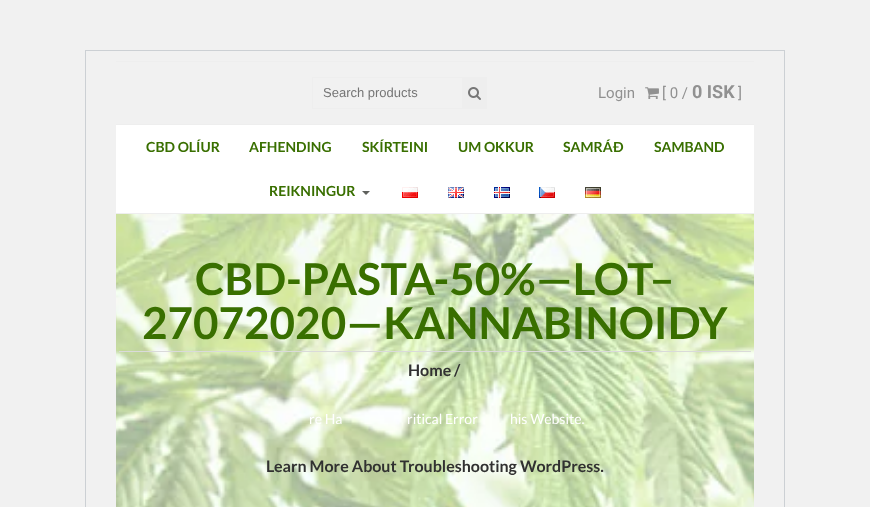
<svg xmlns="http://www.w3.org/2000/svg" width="870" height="507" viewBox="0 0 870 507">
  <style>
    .t1 { font: 13px Liberation Sans; fill: #757575; }
    .t2 { font: 15px Roboto; fill: #919191; }
    .t3 { font: bold 18px Roboto; fill: #919191; }
    .t4 { font: bold 14px Lato; fill: #396f00; }
    .t5 { font: bold 44px Lato; fill: #396f00; }
    .t6 { font: bold 16px Lato; fill: #313131; }
    .t7 { font: 14px Lato; fill: #fff; }
  </style>
  <rect width="100%" height="100%" fill="#f1f1f1"/>
  <rect x="85.5" y="50.5" width="699" height="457" fill="none" stroke="#ccd0d4"/>
  <rect x="116" y="61" width="638" height="1" fill="#eee"/>
  <rect x="312.5" y="77.5" width="174" height="31" fill="none" stroke="#eee"/>
  <text x="323" y="97" class="t1">Search products</text>
  <rect x="462" y="78" width="24" height="30" fill="#eee"/>
  <image x="468" y="87" width="13" height="13" href="images/1.png"/>
  <text x="598" y="98" class="t2">Login</text>
  <image x="645" y="87" width="14" height="12" href="images/2.png"/>
  <text x="662" y="98" class="t2">[ 0 /</text>
  <text x="692" y="98" class="t3">0 ISK</text>
  <text x="738" y="98" class="t2">]</text>
  <rect x="116" y="125" width="638" height="88" fill="#fff"/>
  <rect x="116" y="124" width="638" height="1" fill="#eee"/>
  <rect x="116" y="213" width="638" height="1" fill="#eee"/>
  <text x="146" y="152" class="t4">CBD OLÍUR</text>
  <text x="249" y="152" class="t4">AFHENDING</text>
  <text x="362" y="152" class="t4">SKÍRTEINI</text>
  <text x="458" y="152" class="t4">UM OKKUR</text>
  <text x="563" y="152" class="t4">SAMRÁÐ</text>
  <text x="654" y="152" class="t4">SAMBAND</text>
  <text x="269" y="196" class="t4">REIKNINGUR</text>
  <path d="M362 191H370L366 195Z" fill="#5f615d"/>
  <image x="402" y="187" width="16" height="11" href="images/3.png"/>
  <image x="448" y="187" width="16" height="11" href="images/4.png"/>
  <image x="494" y="187" width="16" height="11" href="images/5.png"/>
  <image x="539" y="187" width="16" height="11" href="images/6.png"/>
  <image x="585" y="187" width="16" height="11" href="images/7.png"/>
  <image x="116" y="214" width="638" height="293" href="images/8.png"/>
  <rect x="119" y="351" width="632" height="1" fill="#dadada"/>
  <text x="195" y="295" class="t5">CBD-PASTA-50%—LOT–</text>
  <text x="142" y="339" class="t5">27072020—KANNABINOIDY</text>
  <text x="408" y="376" class="t6">Home</text>
  <text x="454" y="376" class="t6">/</text>
  <text x="309" y="424" class="t7">re Ha</text>
  <text x="407" y="424" class="t7">ritical Error</text>
  <text x="510" y="424" class="t7">his Website.</text>
  <text x="266" y="472" class="t6">Learn More About Troubleshooting WordPress.</text>
</svg>
